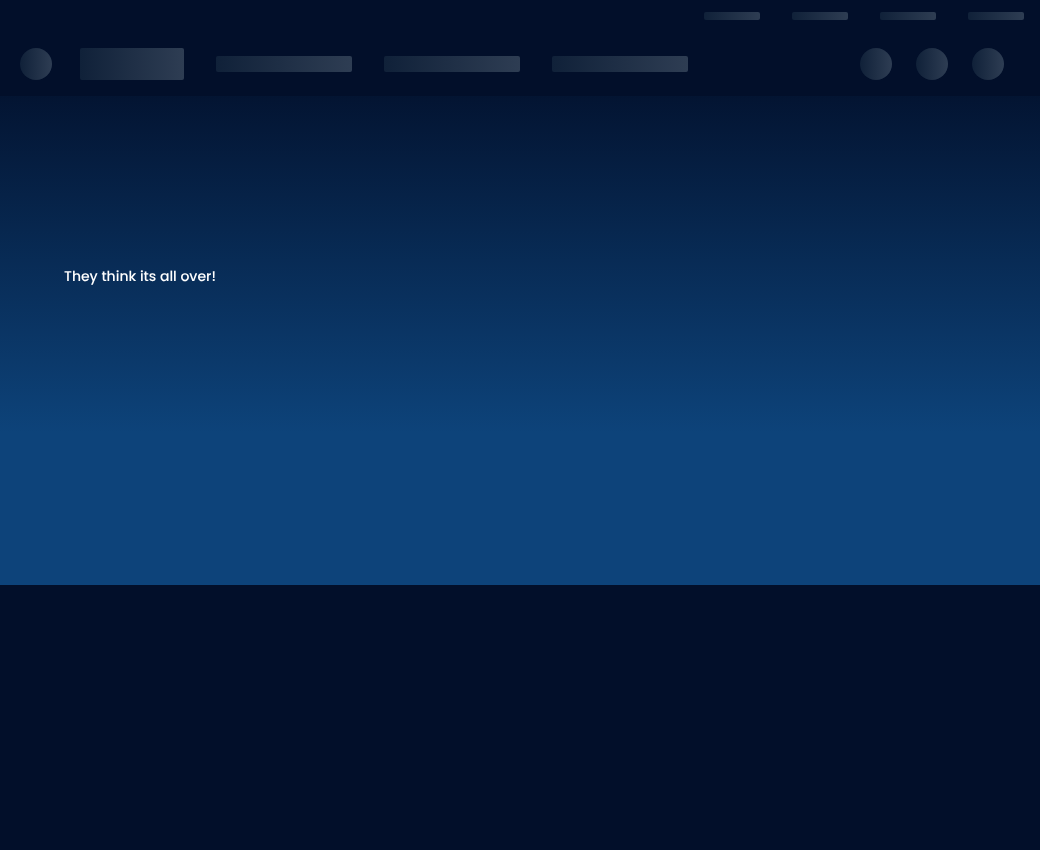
<svg xmlns="http://www.w3.org/2000/svg" width="1040" height="850" viewBox="0 0 1040 850">
  <style>
    .t1 { font: 500 14px Poppins; fill: #fff; }
  </style>
  <defs>
    <linearGradient id="g1" gradientUnits="userSpaceOnUse" x1="704" y1="16" x2="816" y2="16"><stop offset="0" stop-color="#102139"/><stop offset="0.5" stop-color="#2e3d53"/><stop offset="1" stop-color="#102139"/></linearGradient>
    <linearGradient id="g2" gradientUnits="userSpaceOnUse" x1="792" y1="16" x2="904" y2="16"><stop offset="0" stop-color="#102139"/><stop offset="0.5" stop-color="#2e3d53"/><stop offset="1" stop-color="#102139"/></linearGradient>
    <linearGradient id="g3" gradientUnits="userSpaceOnUse" x1="880" y1="16" x2="992" y2="16"><stop offset="0" stop-color="#102139"/><stop offset="0.5" stop-color="#2e3d53"/><stop offset="1" stop-color="#102139"/></linearGradient>
    <linearGradient id="g4" gradientUnits="userSpaceOnUse" x1="968" y1="16" x2="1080" y2="16"><stop offset="0" stop-color="#102139"/><stop offset="0.5" stop-color="#2e3d53"/><stop offset="1" stop-color="#102139"/></linearGradient>
    <linearGradient id="g5" gradientUnits="userSpaceOnUse" x1="20" y1="64" x2="84" y2="64"><stop offset="0" stop-color="#a5acbb" stop-opacity="0"/><stop offset="0.5" stop-color="#a5acbb" stop-opacity="0.2"/><stop offset="1" stop-color="#a5acbb" stop-opacity="0"/></linearGradient>
    <linearGradient id="g6" gradientUnits="userSpaceOnUse" x1="80" y1="64" x2="288" y2="64"><stop offset="0" stop-color="#102139"/><stop offset="0.5" stop-color="#2e3d53"/><stop offset="1" stop-color="#102139"/></linearGradient>
    <linearGradient id="g7" gradientUnits="userSpaceOnUse" x1="216" y1="64" x2="488" y2="64"><stop offset="0" stop-color="#102139"/><stop offset="0.5" stop-color="#2e3d53"/><stop offset="1" stop-color="#102139"/></linearGradient>
    <linearGradient id="g8" gradientUnits="userSpaceOnUse" x1="384" y1="64" x2="656" y2="64"><stop offset="0" stop-color="#102139"/><stop offset="0.5" stop-color="#2e3d53"/><stop offset="1" stop-color="#102139"/></linearGradient>
    <linearGradient id="g9" gradientUnits="userSpaceOnUse" x1="552" y1="64" x2="824" y2="64"><stop offset="0" stop-color="#102139"/><stop offset="0.5" stop-color="#2e3d53"/><stop offset="1" stop-color="#102139"/></linearGradient>
    <linearGradient id="g10" gradientUnits="userSpaceOnUse" x1="860" y1="64" x2="924" y2="64"><stop offset="0" stop-color="#a5acbb" stop-opacity="0"/><stop offset="0.5" stop-color="#a5acbb" stop-opacity="0.2"/><stop offset="1" stop-color="#a5acbb" stop-opacity="0"/></linearGradient>
    <linearGradient id="g11" gradientUnits="userSpaceOnUse" x1="916" y1="64" x2="980" y2="64"><stop offset="0" stop-color="#a5acbb" stop-opacity="0"/><stop offset="0.5" stop-color="#a5acbb" stop-opacity="0.2"/><stop offset="1" stop-color="#a5acbb" stop-opacity="0"/></linearGradient>
    <linearGradient id="g12" gradientUnits="userSpaceOnUse" x1="972" y1="64" x2="1036" y2="64"><stop offset="0" stop-color="#a5acbb" stop-opacity="0"/><stop offset="0.5" stop-color="#a5acbb" stop-opacity="0.2"/><stop offset="1" stop-color="#a5acbb" stop-opacity="0"/></linearGradient>
    <linearGradient id="g13" gradientUnits="userSpaceOnUse" x1="520" y1="0" x2="520" y2="585"><stop offset="0.1" stop-color="#020f2a"/><stop offset="0.74" stop-color="#0d437a"/></linearGradient>
  </defs>
  <rect width="100%" height="100%" fill="#020f2a"/>
  <rect x="704" y="12" width="56" height="8" rx="2" fill="url(#g1)"/>
  <rect x="792" y="12" width="56" height="8" rx="2" fill="url(#g2)"/>
  <rect x="880" y="12" width="56" height="8" rx="2" fill="url(#g3)"/>
  <rect x="968" y="12" width="56" height="8" rx="2" fill="url(#g4)"/>
  <circle cx="36" cy="64" r="16" fill="#102139"/>
  <circle cx="36" cy="64" r="16" fill="url(#g5)"/>
  <rect x="80" y="48" width="104" height="32" rx="2" fill="url(#g6)"/>
  <rect x="216" y="56" width="136" height="16" rx="2" fill="url(#g7)"/>
  <rect x="384" y="56" width="136" height="16" rx="2" fill="url(#g8)"/>
  <rect x="552" y="56" width="136" height="16" rx="2" fill="url(#g9)"/>
  <circle cx="876" cy="64" r="16" fill="#102139"/>
  <circle cx="876" cy="64" r="16" fill="url(#g10)"/>
  <circle cx="932" cy="64" r="16" fill="#102139"/>
  <circle cx="932" cy="64" r="16" fill="url(#g11)"/>
  <circle cx="988" cy="64" r="16" fill="#102139"/>
  <circle cx="988" cy="64" r="16" fill="url(#g12)"/>
  <rect x="0" y="96" width="1040" height="489" fill="url(#g13)"/>
  <text x="64" y="281" class="t1">They think its all over!</text>
</svg>
